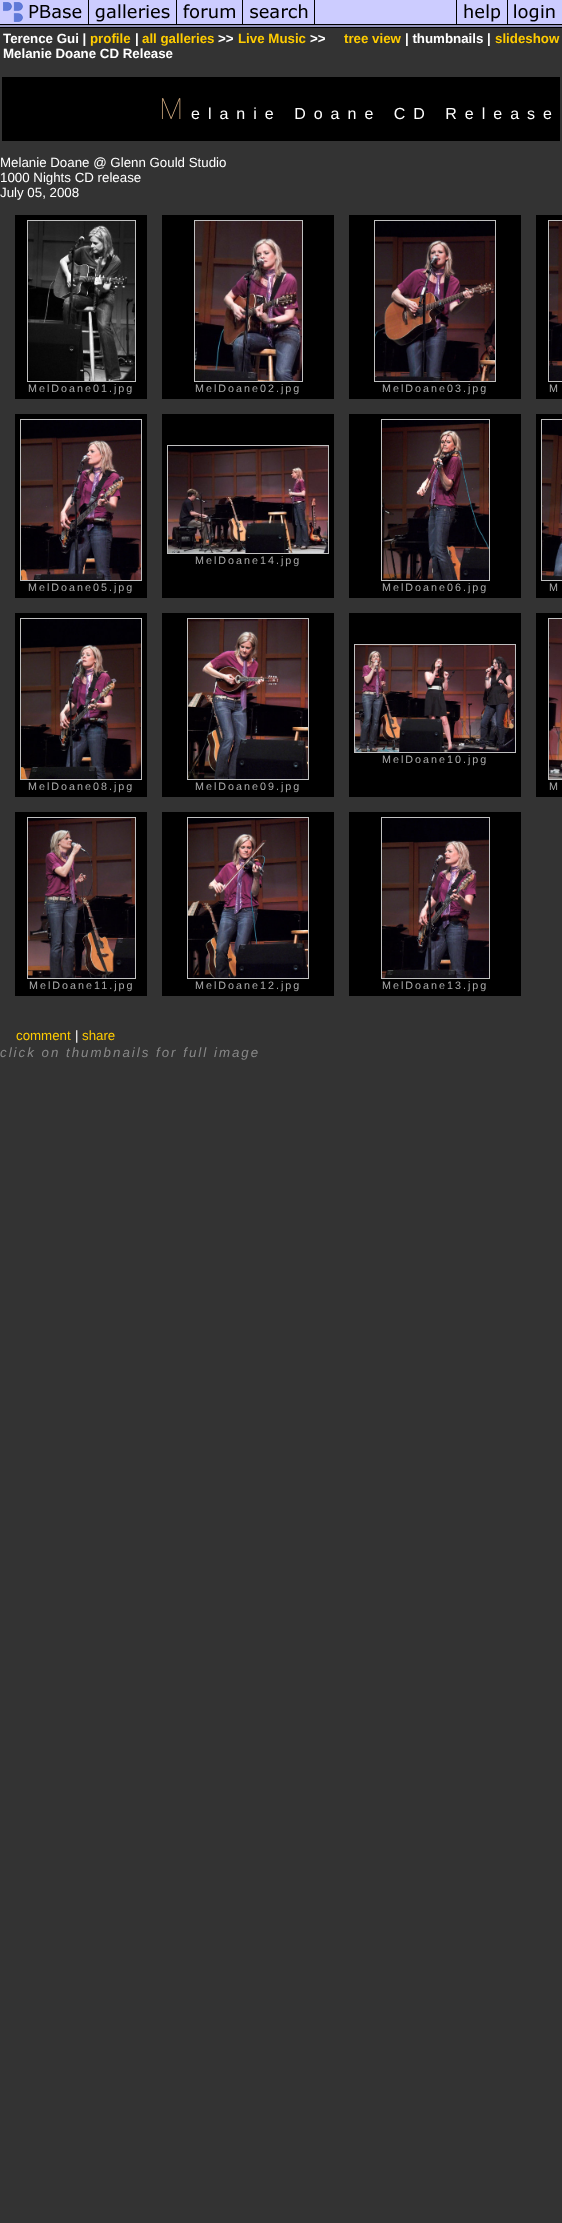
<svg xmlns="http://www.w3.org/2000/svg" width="562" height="2223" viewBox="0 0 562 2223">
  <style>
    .t1 { font: bold 13.3px Liberation Sans; fill: #fff; }
    .t2 { font: bold 13.3px Liberation Sans; fill: #fc0; }
    .t3 { font: 100 29px Noto Sans; letter-spacing: 8px; fill: #d5ae83; }
    .t4 { font: 16px Liberation Sans; letter-spacing: 8px; fill: #fff; }
    .t5 { font: 13.3px Liberation Sans; fill: #fff; }
    .t6 { font: 10.75px Liberation Sans; letter-spacing: 2px; fill: #aaa; }
    .t7 { font: 13.3px Liberation Sans; fill: #fc0; }
    .t8 { font: italic 13.3px Liberation Sans; letter-spacing: 2px; fill: #888; }
  </style>
  <rect width="100%" height="100%" fill="#333"/>
  <image x="0" y="0" width="89" height="28" href="images/1.png"/>
  <image x="89" y="0" width="88" height="28" href="images/2.png"/>
  <image x="177" y="0" width="66" height="28" href="images/3.png"/>
  <image x="243" y="0" width="72" height="28" href="images/4.png"/>
  <image x="315" y="0" width="141" height="28" href="images/5.png"/>
  <image x="456" y="0" width="52" height="28" href="images/6.png"/>
  <image x="508" y="0" width="54" height="28" href="images/7.png"/>
  <text x="3" y="43" class="t1">Terence Gui |</text>
  <text x="90" y="43" class="t2">profile</text>
  <text x="135" y="43" class="t1">|</text>
  <text x="142" y="43" class="t2">all galleries</text>
  <text x="218" y="43" class="t1">&gt;&gt;</text>
  <text x="238" y="43" class="t2">Live Music</text>
  <text x="310" y="43" class="t1">&gt;&gt;</text>
  <text x="3" y="58" class="t1">Melanie Doane CD Release</text>
  <text x="344" y="43" class="t2">tree view</text>
  <text x="405" y="43" class="t1">| thumbnails |</text>
  <text x="495" y="43" class="t2">slideshow</text>
  <rect x="2" y="77" width="558" height="64" fill="#000"/>
  <text x="159" y="119" class="t3">M</text>
  <text x="191" y="119" class="t4">elanie Doane CD Release</text>
  <text x="0" y="167" class="t5">Melanie Doane @ Glenn Gould Studio</text>
  <text x="0" y="182" class="t5">1000 Nights CD release</text>
  <text x="0" y="197" class="t5">July 05, 2008</text>
  <rect x="15" y="215" width="132" height="184" fill="#000"/>
  <rect x="27.5" y="220.5" width="108" height="161" fill="none" stroke="#c0c0c0"/>
  <image x="28" y="221" width="107" height="160" href="images/8.png"/>
  <text x="28" y="392" class="t6">MelDoane01.jpg</text>
  <rect x="162" y="215" width="172" height="184" fill="#000"/>
  <rect x="194.5" y="220.5" width="108" height="161" fill="none" stroke="#c0c0c0"/>
  <image x="195" y="221" width="107" height="160" href="images/9.png"/>
  <text x="195" y="392" class="t6">MelDoane02.jpg</text>
  <rect x="349" y="215" width="172" height="184" fill="#000"/>
  <rect x="374.5" y="220.5" width="121" height="161" fill="none" stroke="#c0c0c0"/>
  <image x="375" y="221" width="120" height="160" href="images/10.png"/>
  <text x="382" y="392" class="t6">MelDoane03.jpg</text>
  <rect x="536" y="215" width="26" height="184" fill="#000"/>
  <rect x="548.5" y="220.5" width="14" height="161" fill="none" stroke="#c0c0c0"/>
  <image x="549" y="221" width="13" height="160" href="images/11.png"/>
  <text x="549" y="392" class="t6">M</text>
  <rect x="162" y="414" width="172" height="184" fill="#000"/>
  <rect x="167.5" y="445.5" width="161" height="108" fill="none" stroke="#c0c0c0"/>
  <image x="168" y="446" width="160" height="107" href="images/12.png"/>
  <text x="195" y="564" class="t6">MelDoane14.jpg</text>
  <rect x="15" y="414" width="132" height="184" fill="#000"/>
  <rect x="20.5" y="419.5" width="121" height="161" fill="none" stroke="#c0c0c0"/>
  <image x="21" y="420" width="120" height="160" href="images/13.png"/>
  <text x="28" y="591" class="t6">MelDoane05.jpg</text>
  <rect x="349" y="414" width="172" height="184" fill="#000"/>
  <rect x="381.5" y="419.5" width="108" height="161" fill="none" stroke="#c0c0c0"/>
  <image x="382" y="420" width="107" height="160" href="images/14.png"/>
  <text x="382" y="591" class="t6">MelDoane06.jpg</text>
  <rect x="536" y="414" width="26" height="184" fill="#000"/>
  <rect x="541.5" y="419.5" width="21" height="161" fill="none" stroke="#c0c0c0"/>
  <image x="542" y="420" width="20" height="160" href="images/15.png"/>
  <text x="549" y="591" class="t6">M</text>
  <rect x="349" y="613" width="172" height="184" fill="#000"/>
  <rect x="354.5" y="644.5" width="161" height="108" fill="none" stroke="#c0c0c0"/>
  <image x="355" y="645" width="160" height="107" href="images/16.png"/>
  <text x="382" y="763" class="t6">MelDoane10.jpg</text>
  <rect x="15" y="613" width="132" height="184" fill="#000"/>
  <rect x="20.5" y="618.5" width="121" height="161" fill="none" stroke="#c0c0c0"/>
  <image x="21" y="619" width="120" height="160" href="images/17.png"/>
  <text x="28" y="790" class="t6">MelDoane08.jpg</text>
  <rect x="162" y="613" width="172" height="184" fill="#000"/>
  <rect x="187.5" y="618.5" width="121" height="161" fill="none" stroke="#c0c0c0"/>
  <image x="188" y="619" width="120" height="160" href="images/18.png"/>
  <text x="195" y="790" class="t6">MelDoane09.jpg</text>
  <rect x="536" y="613" width="26" height="184" fill="#000"/>
  <rect x="548.5" y="618.5" width="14" height="161" fill="none" stroke="#c0c0c0"/>
  <image x="549" y="619" width="13" height="160" href="images/19.png"/>
  <text x="549" y="790" class="t6">M</text>
  <rect x="15" y="812" width="132" height="184" fill="#000"/>
  <rect x="27.5" y="817.5" width="108" height="161" fill="none" stroke="#c0c0c0"/>
  <image x="28" y="818" width="107" height="160" href="images/20.png"/>
  <text x="29" y="989" class="t6">MelDoane11.jpg</text>
  <rect x="162" y="812" width="172" height="184" fill="#000"/>
  <rect x="187.5" y="817.5" width="121" height="161" fill="none" stroke="#c0c0c0"/>
  <image x="188" y="818" width="120" height="160" href="images/21.png"/>
  <text x="195" y="989" class="t6">MelDoane12.jpg</text>
  <rect x="349" y="812" width="172" height="184" fill="#000"/>
  <rect x="381.5" y="817.5" width="108" height="161" fill="none" stroke="#c0c0c0"/>
  <image x="382" y="818" width="107" height="160" href="images/22.png"/>
  <text x="382" y="989" class="t6">MelDoane13.jpg</text>
  <text x="16" y="1040" class="t7">comment</text>
  <text x="75" y="1040" class="t5">|</text>
  <text x="82" y="1040" class="t7">share</text>
  <text x="0" y="1057" class="t8">click on thumbnails for full image</text>
</svg>
